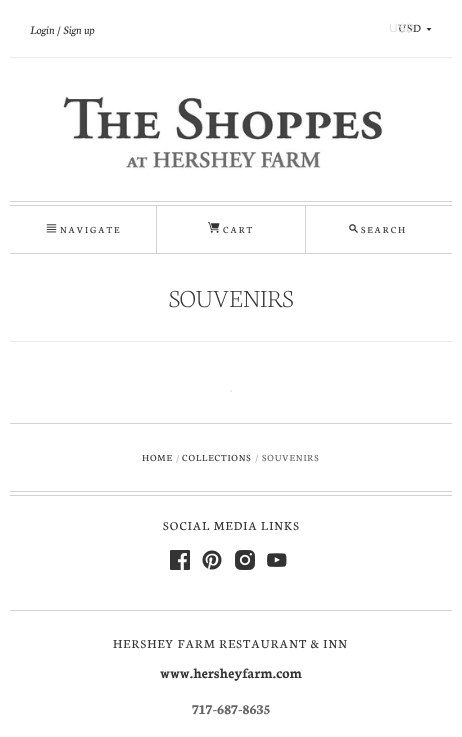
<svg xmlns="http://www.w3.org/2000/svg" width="462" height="737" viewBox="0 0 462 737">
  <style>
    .t1 { font: italic 12.25px Neuton; fill: #333; }
    .t2 { font: 12px Neuton; letter-spacing: 1px; fill: #333; }
    .t3 { font: 12px Liberation Sans; fill: #e1e1e1; }
    .t4 { font: 10px Neuton; letter-spacing: 2px; fill: #333; }
    .t5 { font: 300 26.25px Neuton; fill: #333; }
    .t6 { font: 10px Neuton; letter-spacing: 1px; fill: #333; }
    .t7 { font: 10px Neuton; letter-spacing: 1px; fill: #aaa; }
    .t8 { font: 10px Neuton; letter-spacing: 1px; fill: #666; }
    .t9 { font: 13px Neuton; letter-spacing: 1.3px; fill: #333; }
    .t10 { font: bold 15px Neuton; fill: #333; }
    .t11 { font: bold 15px Neuton; fill: #666; }
  </style>
  <rect width="100%" height="100%" fill="#fff"/>
  <rect x="10" y="57" width="442" height="1" fill="#ebebeb"/>
  <text x="30" y="34" class="t1">Login / Sign up</text>
  <text x="398" y="32" class="t2">USD</text>
  <text x="389" y="32" class="t3">USD</text>
  <path d="M426.5 28H431.5L429 31" fill="#333" fill-rule="evenodd"/>
  <image x="62" y="96" width="321" height="74" href="images/1.png"/>
  <rect x="10" y="205" width="442" height="1" fill="#d2d2d2"/>
  <rect x="10" y="201" width="442" height="1" fill="#d2d2d2"/>
  <path d="M157 205V253H156V206Z" fill="#d2d2d2"/>
  <image x="46" y="224" width="11" height="9" href="images/2.png"/>
  <text x="60" y="233" class="t4">NAVIGATE</text>
  <image x="208" y="222" width="12" height="11" href="images/3.png"/>
  <text x="223" y="233" class="t4">CART</text>
  <path d="M305 253V205L306 206V253Z" fill="#d2d2d2"/>
  <image x="349" y="224" width="9" height="9" href="images/4.png"/>
  <text x="361" y="233" class="t4">SEARCH</text>
  <rect x="10" y="253" width="442" height="1" fill="#d2d2d2"/>
  <rect x="10" y="341" width="442" height="1" fill="#ebebeb"/>
  <text x="169" y="307" class="t5">SOUVENIRS</text>
  <rect x="230" y="390" width="2" height="2" fill="#ebebeb"/>
  <rect x="10" y="423" width="442" height="1" fill="#d2d2d2"/>
  <text x="142" y="461" class="t6">HOME</text>
  <text x="176" y="461" class="t7">/</text>
  <text x="182" y="461" class="t6">COLLECTIONS</text>
  <text x="255" y="461" class="t7">/</text>
  <text x="262" y="461" class="t8">SOUVENIRS</text>
  <rect x="10" y="491" width="442" height="1" fill="#d2d2d2"/>
  <rect x="10" y="495" width="442" height="1" fill="#d2d2d2"/>
  <text x="163" y="530" class="t9">SOCIAL MEDIA LINKS</text>
  <image x="170" y="550" width="20" height="20" href="images/5.png"/>
  <image x="202" y="550" width="20" height="20" href="images/6.png"/>
  <image x="235" y="550" width="20" height="20" href="images/7.png"/>
  <image x="267" y="553" width="20" height="14" href="images/8.png"/>
  <rect x="10" y="610" width="442" height="1" fill="#d2d2d2"/>
  <text x="113" y="648" class="t9">HERSHEY FARM RESTAURANT &amp; INN</text>
  <text x="160" y="678" class="t10">www.hersheyfarm.com</text>
  <text x="192" y="714" class="t11">717-687-8635</text>
</svg>
